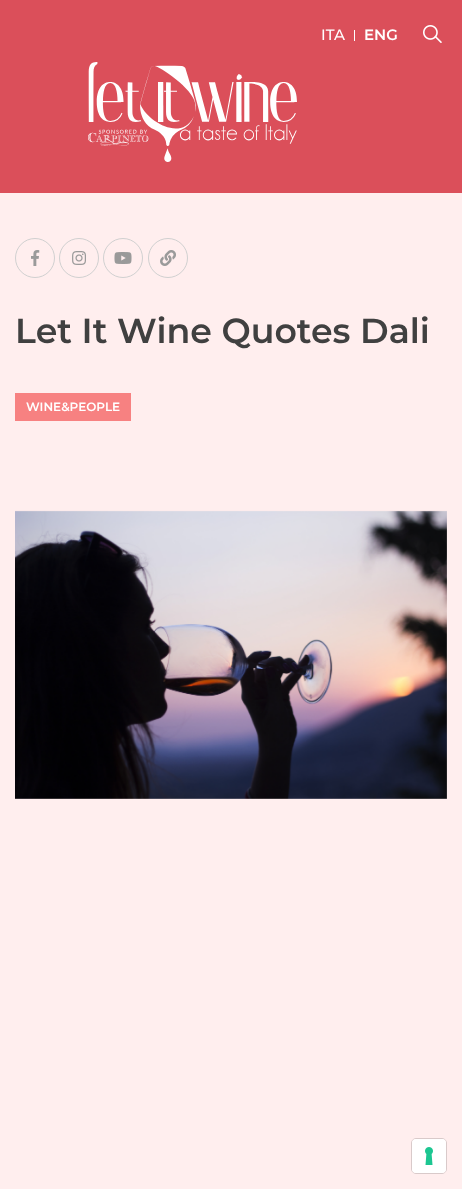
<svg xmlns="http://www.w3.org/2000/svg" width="462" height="1189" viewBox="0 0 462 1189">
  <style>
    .t1 { font: 500 15px Montserrat; fill: #fff; }
    .t2 { font: 600 15px Montserrat; fill: #fff; }
    .t3 { font: 600 34.75px Montserrat; fill: #404040; }
    .t4 { font: 600 12px Montserrat; fill: #fff; }
  </style>
  <rect width="100%" height="100%" fill="#fee"/>
  <rect x="0" y="0" width="462" height="193" fill="#db4f5a"/>
  <text x="321" y="40" class="t1">ITA</text>
  <rect x="354" y="30" width="1" height="11" fill="#fff"/>
  <text x="364" y="40" class="t2">ENG</text>
  <image x="423" y="25" width="19" height="18" href="images/1.png"/>
  <image x="88" y="62" width="209" height="100" href="images/2.png"/>
  <circle cx="35" cy="258" r="19.5" fill="none" stroke="#d0d0d0"/>
  <image x="31" y="250" width="9" height="16" href="images/3.png"/>
  <circle cx="79" cy="258" r="19.5" fill="none" stroke="#d0d0d0"/>
  <image x="72" y="251" width="14" height="14" href="images/4.png"/>
  <circle cx="123" cy="258" r="19.5" fill="none" stroke="#d0d0d0"/>
  <image x="114" y="252" width="18" height="12" href="images/5.png"/>
  <circle cx="168" cy="258" r="19.5" fill="none" stroke="#d0d0d0"/>
  <image x="160" y="250" width="16" height="16" href="images/6.png"/>
  <text x="15" y="343" class="t3">Let It Wine Quotes Dali</text>
  <rect x="15" y="393" width="116" height="28" fill="#f78181"/>
  <text x="26" y="411" class="t4">WINE&amp;PEOPLE</text>
  <image x="15" y="510" width="432" height="289" href="images/7.png"/>
  <rect x="411.5" y="1138.5" width="35" height="35" rx="4.5" fill="none" stroke="#d9caca"/>
  <rect x="412" y="1139" width="34" height="34" rx="4" fill="#fff"/>
  <image x="425" y="1147" width="8" height="18" href="images/8.png"/>
</svg>
